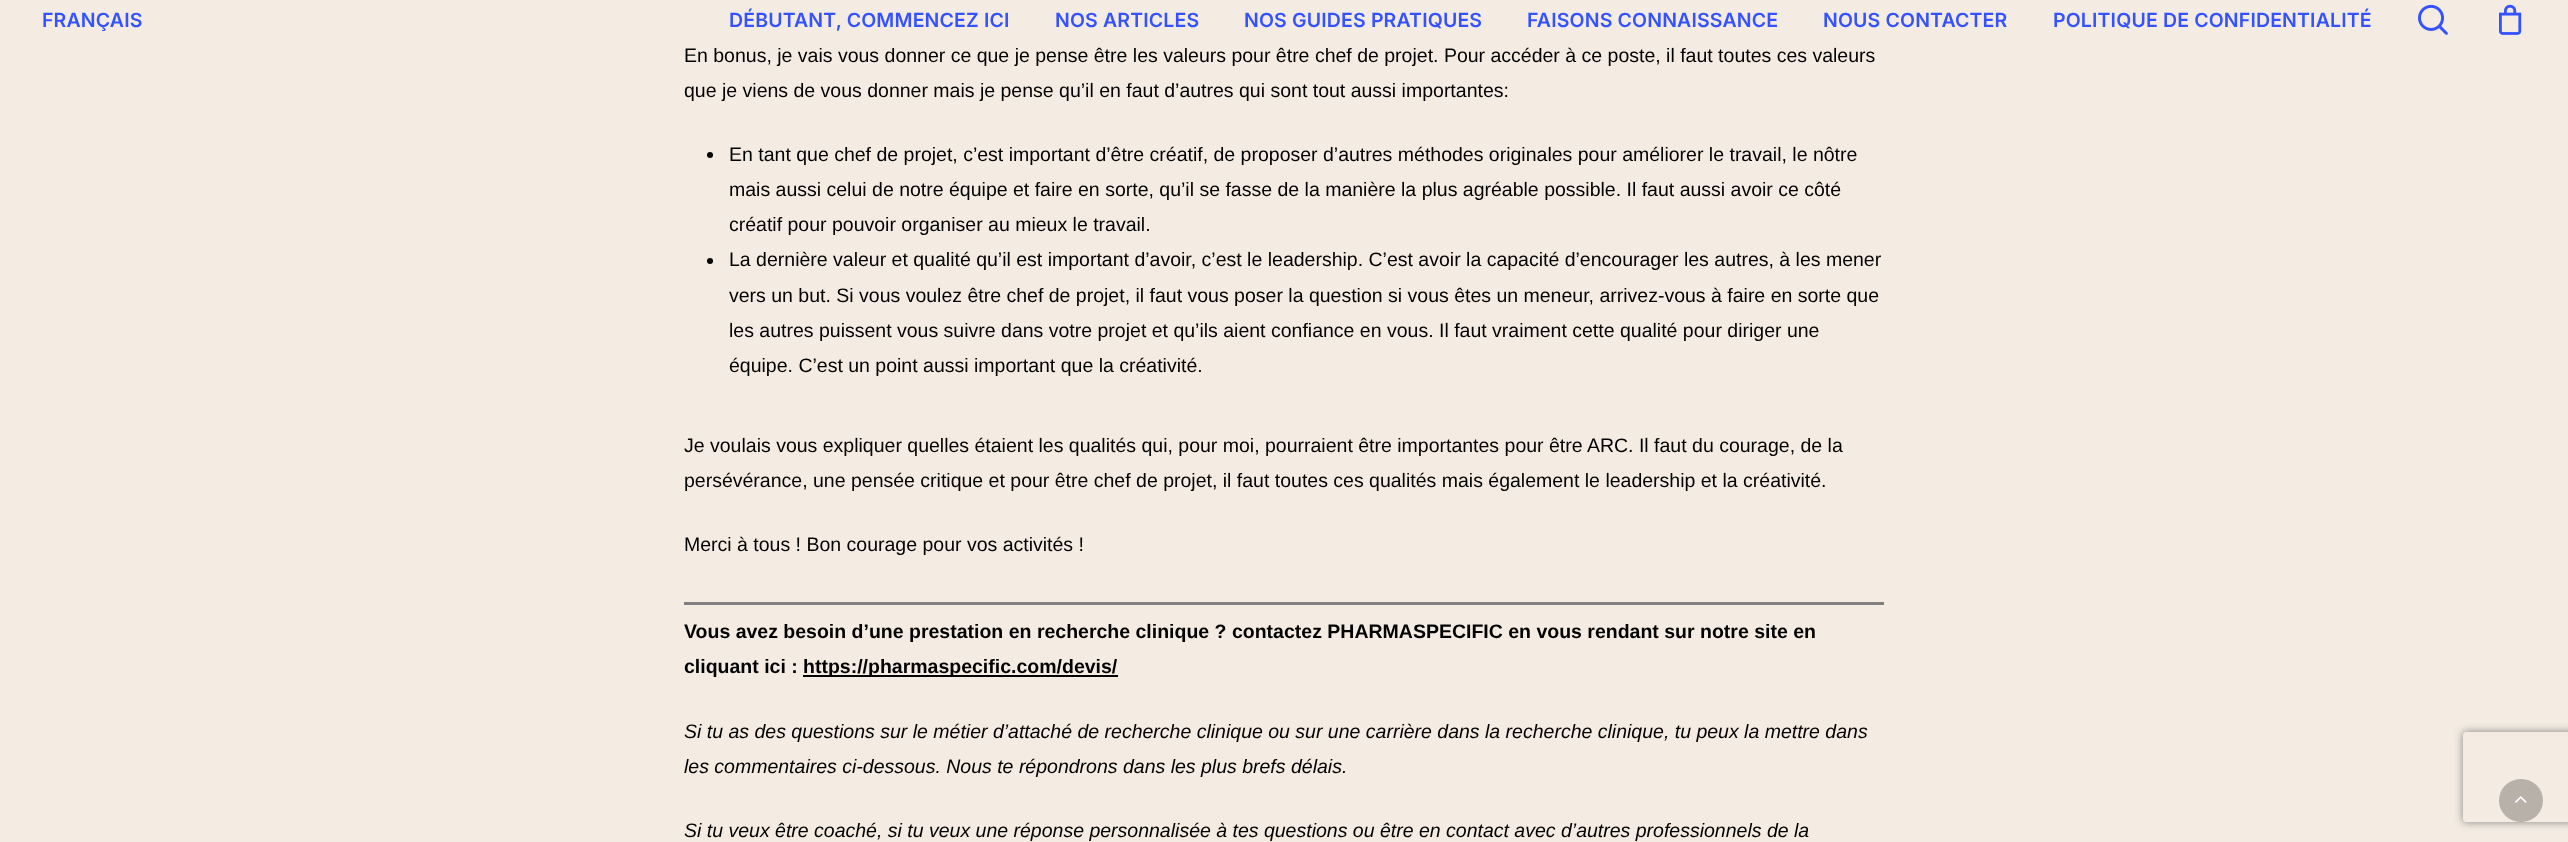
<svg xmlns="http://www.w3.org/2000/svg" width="2568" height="842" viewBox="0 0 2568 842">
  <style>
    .t1 { font: 600 19.5px Inter; letter-spacing: 0.15px; fill: #3452ff; }
    .t2 { font: 19.5px Liberation Sans; fill: #000; }
    .t3 { font: bold 19.5px Liberation Sans; fill: #000; }
    .t4 { font: italic 19.5px Liberation Sans; fill: #000; }
  </style>
  <defs>
    <clipPath id="clip1"><path d="M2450 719H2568V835H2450ZM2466 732H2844C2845.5 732 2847 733.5 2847 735V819C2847 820.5 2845.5 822 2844 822H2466C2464.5 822 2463 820.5 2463 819V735C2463 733.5 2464.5 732 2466 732Z" clip-rule="evenodd"/></clipPath>
  </defs>
  <rect width="100%" height="100%" fill="#f4ece2"/>
  <text x="42" y="27" class="t1">FRANÇAIS</text>
  <text x="729" y="27" class="t1">DÉBUTANT, COMMENCEZ ICI</text>
  <text x="1055" y="27" class="t1">NOS ARTICLES</text>
  <text x="1244" y="27" class="t1">NOS GUIDES PRATIQUES</text>
  <text x="1527" y="27" class="t1">FAISONS CONNAISSANCE</text>
  <text x="1823" y="27" class="t1">NOUS CONTACTER</text>
  <text x="2053" y="27" class="t1">POLITIQUE DE CONFIDENTIALITÉ</text>
  <image x="2418" y="4" width="30" height="31" href="images/1.png"/>
  <image x="2499" y="4" width="23" height="31" href="images/2.png"/>
  <text x="684" y="62" class="t2">En bonus, je vais vous donner ce que je pense être les valeurs pour être chef de projet. Pour accéder à ce poste, il faut toutes ces valeurs</text>
  <text x="684" y="97" class="t2">que je viens de vous donner mais je pense qu’il en faut d’autres qui sont tout aussi importantes:</text>
  <circle cx="710" cy="155" r="3" fill="#000"/>
  <text x="729" y="161" class="t2">En tant que chef de projet, c’est important d’être créatif, de proposer d’autres méthodes originales pour améliorer le travail, le nôtre</text>
  <text x="729" y="196" class="t2">mais aussi celui de notre équipe et faire en sorte, qu’il se fasse de la manière la plus agréable possible. Il faut aussi avoir ce côté</text>
  <text x="729" y="231" class="t2">créatif pour pouvoir organiser au mieux le travail.</text>
  <circle cx="710" cy="261" r="3" fill="#000"/>
  <text x="729" y="266" class="t2">La dernière valeur et qualité qu’il est important d’avoir, c’est le leadership. C’est avoir la capacité d’encourager les autres, à les mener</text>
  <text x="729" y="302" class="t2">vers un but. Si vous voulez être chef de projet, il faut vous poser la question si vous êtes un meneur, arrivez-vous à faire en sorte que</text>
  <text x="729" y="337" class="t2">les autres puissent vous suivre dans votre projet et qu’ils aient confiance en vous. Il faut vraiment cette qualité pour diriger une</text>
  <text x="729" y="372" class="t2">équipe. C’est un point aussi important que la créativité.</text>
  <text x="684" y="452" class="t2">Je voulais vous expliquer quelles étaient les qualités qui, pour moi, pourraient être importantes pour être ARC. Il faut du courage, de la</text>
  <text x="684" y="487" class="t2">persévérance, une pensée critique et pour être chef de projet, il faut toutes ces qualités mais également le leadership et la créativité.</text>
  <text x="684" y="551" class="t2">Merci à tous ! Bon courage pour vos activités !</text>
  <rect x="684" y="602" width="1200" height="3" fill="#808080"/>
  <text x="684" y="638" class="t3">Vous avez besoin d’une prestation en recherche clinique ? contactez PHARMASPECIFIC en vous rendant sur notre site en</text>
  <text x="684" y="673" class="t3">cliquant ici :</text>
  <rect x="803" y="675" width="315" height="2" fill="#000"/>
  <text x="803" y="673" class="t3">https://pharmaspecific.com/devis/</text>
  <text x="684" y="738" class="t4">Si tu as des questions sur le métier d’attaché de recherche clinique ou sur une carrière dans la recherche clinique, tu peux la mettre dans</text>
  <text x="684" y="773" class="t4">les commentaires ci-dessous. Nous te répondrons dans les plus brefs délais.</text>
  <text x="684" y="837" class="t4">Si tu veux être coaché, si tu veux une réponse personnalisée à tes questions ou être en contact avec d’autres professionnels de la</text>
  <g clip-path="url(#clip1)">
    <rect x="2463" y="732" width="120" height="90" rx="3" fill="#808080" filter="blur(4px)"/>
  </g>
  <rect x="2499" y="779" width="44" height="43" rx="21.5" fill="#b7b1aa"/>
  <image x="2515" y="796" width="12" height="7" href="images/3.png"/>
</svg>
